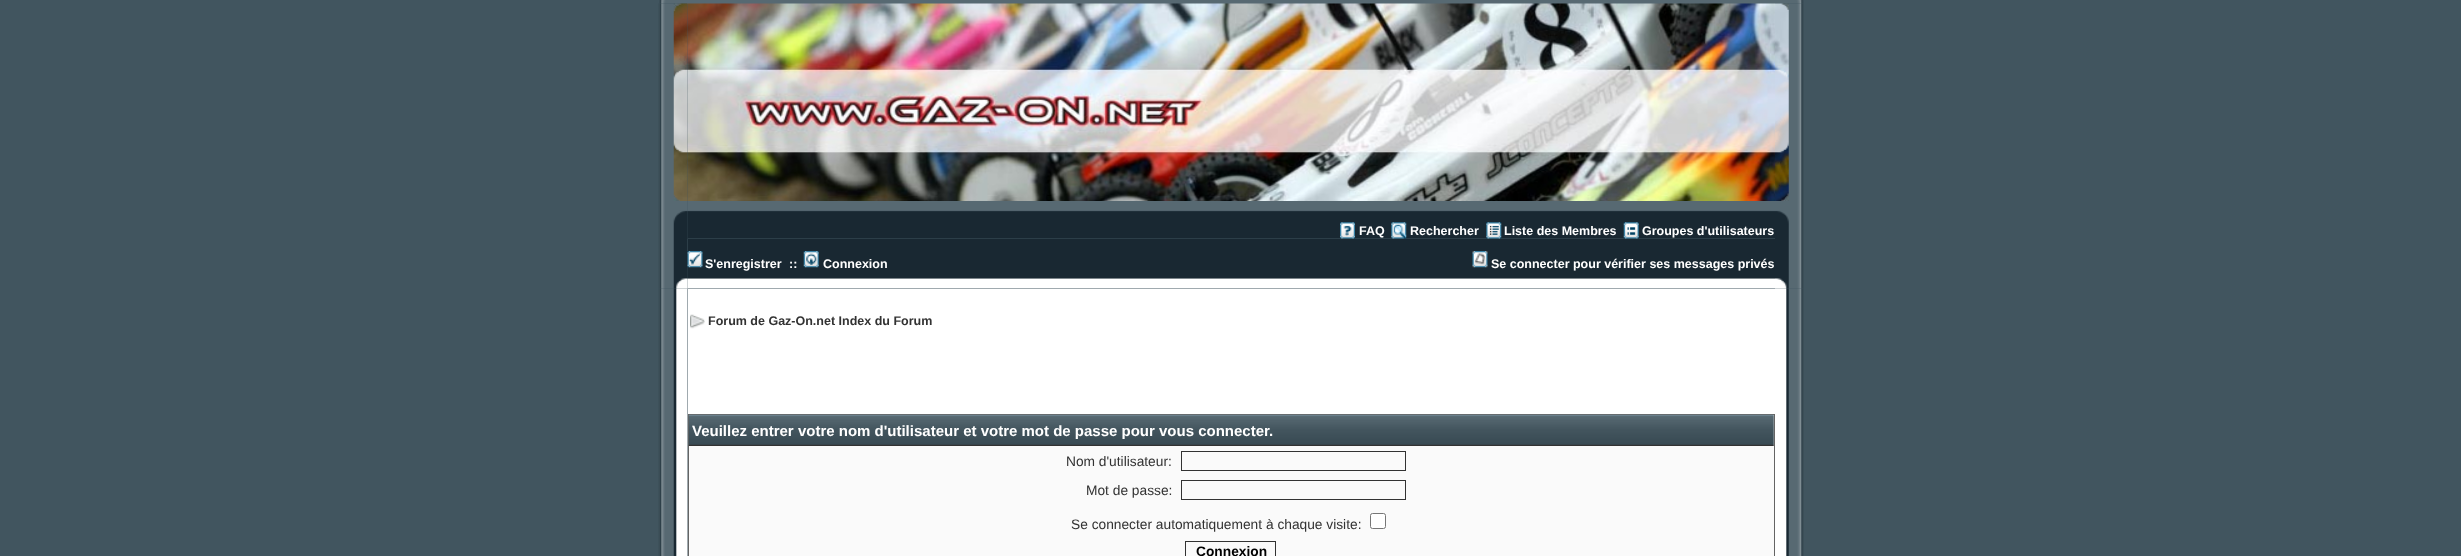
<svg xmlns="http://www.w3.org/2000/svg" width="2461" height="556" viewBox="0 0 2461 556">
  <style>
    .t1 { font: bold 12.5px Liberation Sans; fill: #fff; }
    .t2 { font: bold 12.5px Liberation Sans; fill: #323232; }
    .t3 { font: bold 15px Liberation Sans; fill: #fff; }
    .t4 { font: 13.75px Liberation Sans; fill: #323232; }
    .t5 { font: bold 13.75px Liberation Sans; fill: #000; }
  </style>
  <rect width="100%" height="100%" fill="#41555f"/>
  <image x="659" y="0" width="28" height="4" href="images/1.png"/>
  <rect x="687" y="0" width="1088" height="4" fill="#576972"/>
  <image x="1775" y="0" width="29" height="4" href="images/2.png"/>
  <image x="658" y="3" width="30" height="198" href="images/3.png"/>
  <image x="687" y="3" width="1088" height="198" href="images/4.png"/>
  <image x="1775" y="3" width="29" height="198" href="images/5.png"/>
  <image x="658" y="201" width="30" height="88" href="images/6.png"/>
  <image x="687" y="201" width="343" height="38" href="images/7.png"/>
  <image x="1030" y="201" width="745" height="38" href="images/8.png"/>
  <image x="1340" y="222" width="15" height="17" href="images/9.png"/>
  <text x="1359" y="235" class="t1">FAQ</text>
  <image x="1391" y="222" width="16" height="17" href="images/10.png"/>
  <text x="1410" y="235" class="t1">Rechercher</text>
  <image x="1486" y="222" width="16" height="17" href="images/11.png"/>
  <text x="1504" y="235" class="t1">Liste des Membres</text>
  <image x="1623" y="222" width="16" height="17" href="images/12.png"/>
  <text x="1642" y="235" class="t1">Groupes d'utilisateurs</text>
  <image x="1775" y="201" width="29" height="88" href="images/13.png"/>
  <rect x="688" y="239" width="1087" height="12" fill="#192832"/>
  <image x="687" y="251" width="343" height="38" href="images/14.png"/>
  <image x="687" y="251" width="16" height="17" href="images/15.png"/>
  <text x="705" y="268" class="t1">S'enregistrer</text>
  <text x="789" y="268" class="t1">::</text>
  <image x="803" y="251" width="16" height="17" href="images/16.png"/>
  <text x="823" y="268" class="t1">Connexion</text>
  <image x="1030" y="251" width="745" height="38" href="images/17.png"/>
  <image x="1472" y="251" width="16" height="17" href="images/18.png"/>
  <text x="1491" y="268" class="t1">Se connecter pour vérifier ses messages privés</text>
  <image x="658" y="288" width="30" height="268" href="images/19.png"/>
  <rect x="688" y="289" width="1087" height="157" fill="#fff"/>
  <image x="690" y="314" width="15" height="15" href="images/20.png"/>
  <text x="708" y="325" class="t2">Forum de Gaz-On.net Index du Forum</text>
  <rect x="688.5" y="414.5" width="1086" height="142" fill="none" stroke="#646464"/>
  <image x="688" y="414" width="1086" height="32" href="images/21.png"/>
  <text x="692" y="436" class="t3">Veuillez entrer votre nom d'utilisateur et votre mot de passe pour vous connecter.</text>
  <rect x="689" y="446" width="1085" height="110" fill="#fafafa"/>
  <text x="1066" y="466" class="t4">Nom d'utilisateur:</text>
  <rect x="1181.5" y="451.5" width="224" height="19" fill="none" stroke="#323232"/>
  <text x="1086" y="495" class="t4">Mot de passe:</text>
  <rect x="1181.5" y="480.5" width="224" height="19" fill="none" stroke="#323232"/>
  <text x="1071" y="529" class="t4">Se connecter automatiquement à chaque visite:</text>
  <rect x="1370.5" y="513.5" width="15" height="15" rx="2" fill="#fff" stroke="#767676"/>
  <rect x="1185.5" y="541.5" width="90" height="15" fill="none" stroke="#323232"/>
  <text x="1196" y="556" class="t5">Connexion</text>
  <image x="1775" y="288" width="29" height="268" href="images/22.png"/>
</svg>
